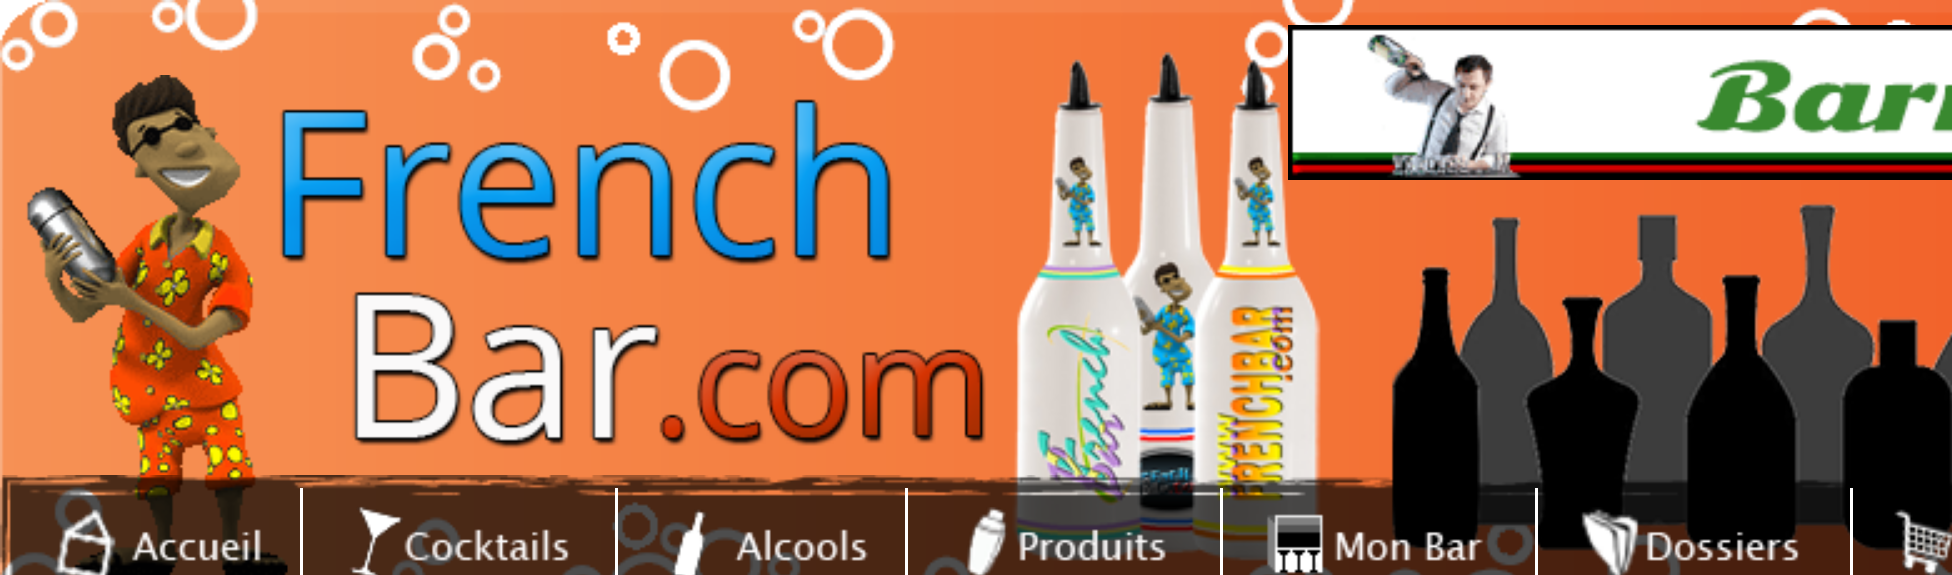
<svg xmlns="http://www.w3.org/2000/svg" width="1952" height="575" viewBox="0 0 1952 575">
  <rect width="100%" height="100%" fill="#fff"/>
  <image x="0" y="0" width="1952" height="575" href="images/1.png"/>
  <image x="26" y="75" width="262" height="500" href="images/2.png"/>
  <rect x="1289.5" y="26.5" width="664" height="152" fill="none" stroke="#000" stroke-width="3"/>
  <image x="1291" y="28" width="661" height="150" href="images/3.png"/>
  <image x="0" y="475" width="1952" height="100" href="images/4.png"/>
  <rect x="300" y="488" width="3" height="87" fill="#fff"/>
  <image x="54" y="509" width="207" height="66" href="images/5.png"/>
  <rect x="615" y="488" width="3" height="87" fill="#fff"/>
  <image x="349" y="506" width="221" height="69" href="images/6.png"/>
  <rect x="905" y="488" width="3" height="87" fill="#fff"/>
  <image x="672" y="509" width="197" height="66" href="images/7.png"/>
  <rect x="1220" y="488" width="3" height="87" fill="#fff"/>
  <image x="966" y="507" width="200" height="68" href="images/8.png"/>
  <rect x="1535" y="488" width="3" height="87" fill="#fff"/>
  <image x="1266" y="514" width="218" height="60" href="images/9.png"/>
  <rect x="1850" y="488" width="3" height="87" fill="#fff"/>
  <image x="1580" y="507" width="220" height="68" href="images/10.png"/>
  <image x="1894" y="509" width="58" height="66" href="images/11.png"/>
</svg>
